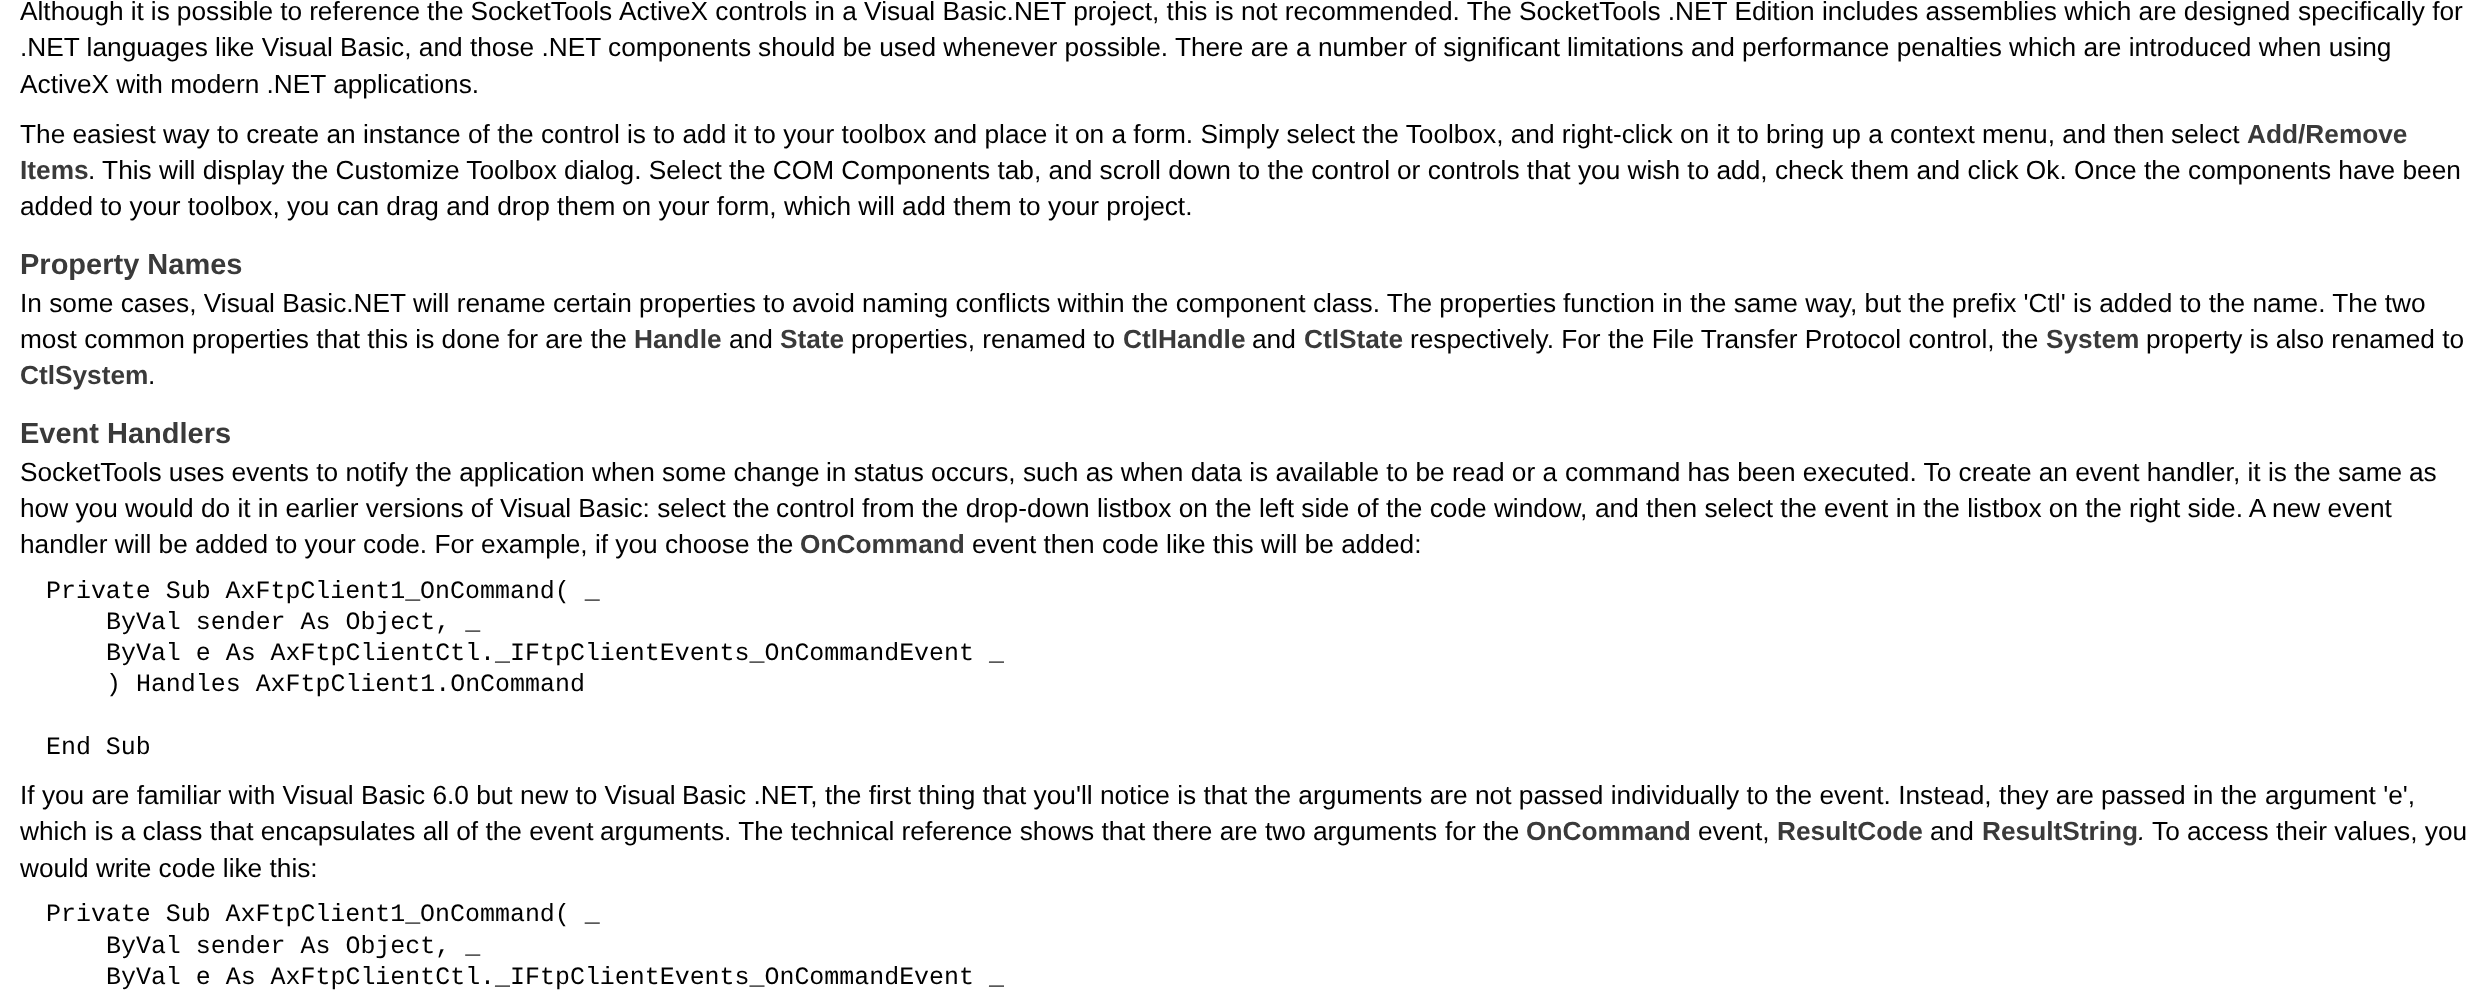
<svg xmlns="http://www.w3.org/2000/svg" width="2486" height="1001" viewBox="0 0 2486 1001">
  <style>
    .t1 { font: 26.25px Liberation Sans; fill: #000; }
    .t2 { font: bold 26.25px Liberation Sans; fill: #3a3a3a; }
    .t3 { font: bold 29px Liberation Sans; fill: #3a3a3a; }
    .t4 { font: 24.95px Liberation Mono; fill: #000; }
    .t5 { font: italic 26.25px Liberation Sans; fill: #000; }
  </style>
  <rect width="100%" height="100%" fill="#fff"/>
  <text x="20" y="20" word-spacing="-0.25" class="t1">Although it is possible to reference the SocketTools</text>
  <text x="619" y="20" class="t1">ActiveX controls in a Visual Basic.NET project, this is not recommended. The</text>
  <text x="1519" y="20" class="t1">SocketTools .NET Edition includes assemblies which are designed</text>
  <text x="2298" y="20" class="t1">specifically for</text>
  <text x="20" y="56" class="t1">.NET languages like Visual Basic, and those .NET components</text>
  <text x="758" y="56" class="t1">should be used whenever possible. There are a number of significant</text>
  <text x="1567" y="56" class="t1">limitations and performance penalties which are introduced when using</text>
  <text x="20" y="93" class="t1">ActiveX with modern .NET applications.</text>
  <text x="20" y="143" class="t1">The easiest way to create an instance of the control</text>
  <text x="627" y="143" class="t1">is to add it to your toolbox and place it on a form. Simply select the Toolbox, and right-click on it to bring up a context menu, and then</text>
  <text x="2171" y="143" class="t1">select</text>
  <text x="2247" y="143" class="t2">Add/Remove</text>
  <text x="20" y="179" class="t2">Items</text>
  <text x="88" y="179" class="t1">. This will display the Customize Toolbox dialog. Select the COM Components tab, and scroll down to the control</text>
  <text x="1397" y="179" class="t1">or controls that you wish to add, check them and click Ok. Once the</text>
  <text x="2188" y="179" class="t1">components have been</text>
  <text x="20" y="215" class="t1">added to your toolbox, you can drag and drop them</text>
  <text x="622" y="215" class="t1">on your form, which will add them to your project.</text>
  <text x="20" y="274" class="t3">Property Names</text>
  <text x="20" y="312" class="t1">In some cases, Visual Basic.NET will rename certain properties to</text>
  <text x="792" y="312" class="t1">avoid naming conflicts within the component class. The properties</text>
  <text x="1563" y="312" class="t1">function in the same way, but the prefix 'Ctl' is added to the name. The two</text>
  <text x="20" y="348" class="t1">most common properties that this is done for are the</text>
  <text x="634" y="348" class="t2">Handle</text>
  <text x="729" y="348" class="t1">and</text>
  <text x="780" y="348" class="t2">State</text>
  <text x="851" y="348" class="t1">properties, renamed to</text>
  <text x="1123" y="348" class="t2">CtlHandle</text>
  <text x="1252" y="348" class="t1">and</text>
  <text x="1304" y="348" class="t2">CtlState</text>
  <text x="1410" y="348" class="t1">respectively. For the File Transfer Protocol control, the</text>
  <text x="2046" y="348" class="t2">System</text>
  <text x="2146" y="348" class="t1">property is also renamed to</text>
  <text x="20" y="384" class="t2">CtlSystem</text>
  <text x="148" y="384" class="t1">.</text>
  <text x="20" y="443" class="t3">Event Handlers</text>
  <text x="20" y="481" class="t1">SocketTools uses events to notify the application when some change</text>
  <text x="826" y="481" class="t1">in status occurs, such as when data is available to be read or a</text>
  <text x="1565" y="481" class="t1">command has been executed. To create an event handler, it is the same</text>
  <text x="2409" y="481" class="t1">as</text>
  <text x="20" y="517" class="t1">how you would do it in earlier versions of Visual Basic: select the</text>
  <text x="776" y="517" class="t1">control from the drop-down listbox on the left side of the code window,</text>
  <text x="1595" y="517" class="t1">and then select the event in the listbox on the right side. A new event</text>
  <text x="20" y="553" class="t1">handler will be added to your code. For example, if you choose the</text>
  <text x="800" y="553" class="t2">OnCommand</text>
  <text x="972" y="553" class="t1">event then code like this will be added:</text>
  <text x="46" y="598" class="t4">Private Sub AxFtpClient1_OnCommand( _</text>
  <text x="106" y="629" class="t4">ByVal sender As Object, _</text>
  <text x="106" y="660" class="t4">ByVal e As AxFtpClientCtl._IFtpClientEvents_OnCommandEvent _</text>
  <text x="106" y="691" class="t4">) Handles AxFtpClient1.OnCommand</text>
  <text x="46" y="754" class="t4">End Sub</text>
  <text x="20" y="804" class="t1">If you are familiar with Visual Basic 6.0 but new to Visual</text>
  <text x="682" y="804" class="t1">Basic .NET, the first thing that you'll notice is that the arguments are</text>
  <text x="1475" y="804" class="t1">not passed individually to the event. Instead, they are passed in the</text>
  <text x="2265" y="804" class="t1">argument 'e',</text>
  <text x="20" y="840" class="t1">which is a class that encapsulates all of the event</text>
  <text x="600" y="840" class="t1">arguments. The technical reference shows that there are two arguments</text>
  <text x="1445" y="840" class="t1">for the</text>
  <text x="1526" y="840" class="t2">OnCommand</text>
  <text x="1698" y="840" class="t1">event,</text>
  <text x="1777" y="840" class="t2">ResultCode</text>
  <text x="1930" y="840" class="t1">and</text>
  <text x="1982" y="840" class="t2">ResultString</text>
  <text x="2138" y="840" class="t5">.</text>
  <text x="2152" y="840" class="t1">To access their values, you</text>
  <text x="20" y="877" class="t1">would write code like this:</text>
  <text x="46" y="921" class="t4">Private Sub AxFtpClient1_OnCommand( _</text>
  <text x="106" y="953" class="t4">ByVal sender As Object, _</text>
  <text x="106" y="984" class="t4">ByVal e As AxFtpClientCtl._IFtpClientEvents_OnCommandEvent _</text>
</svg>
